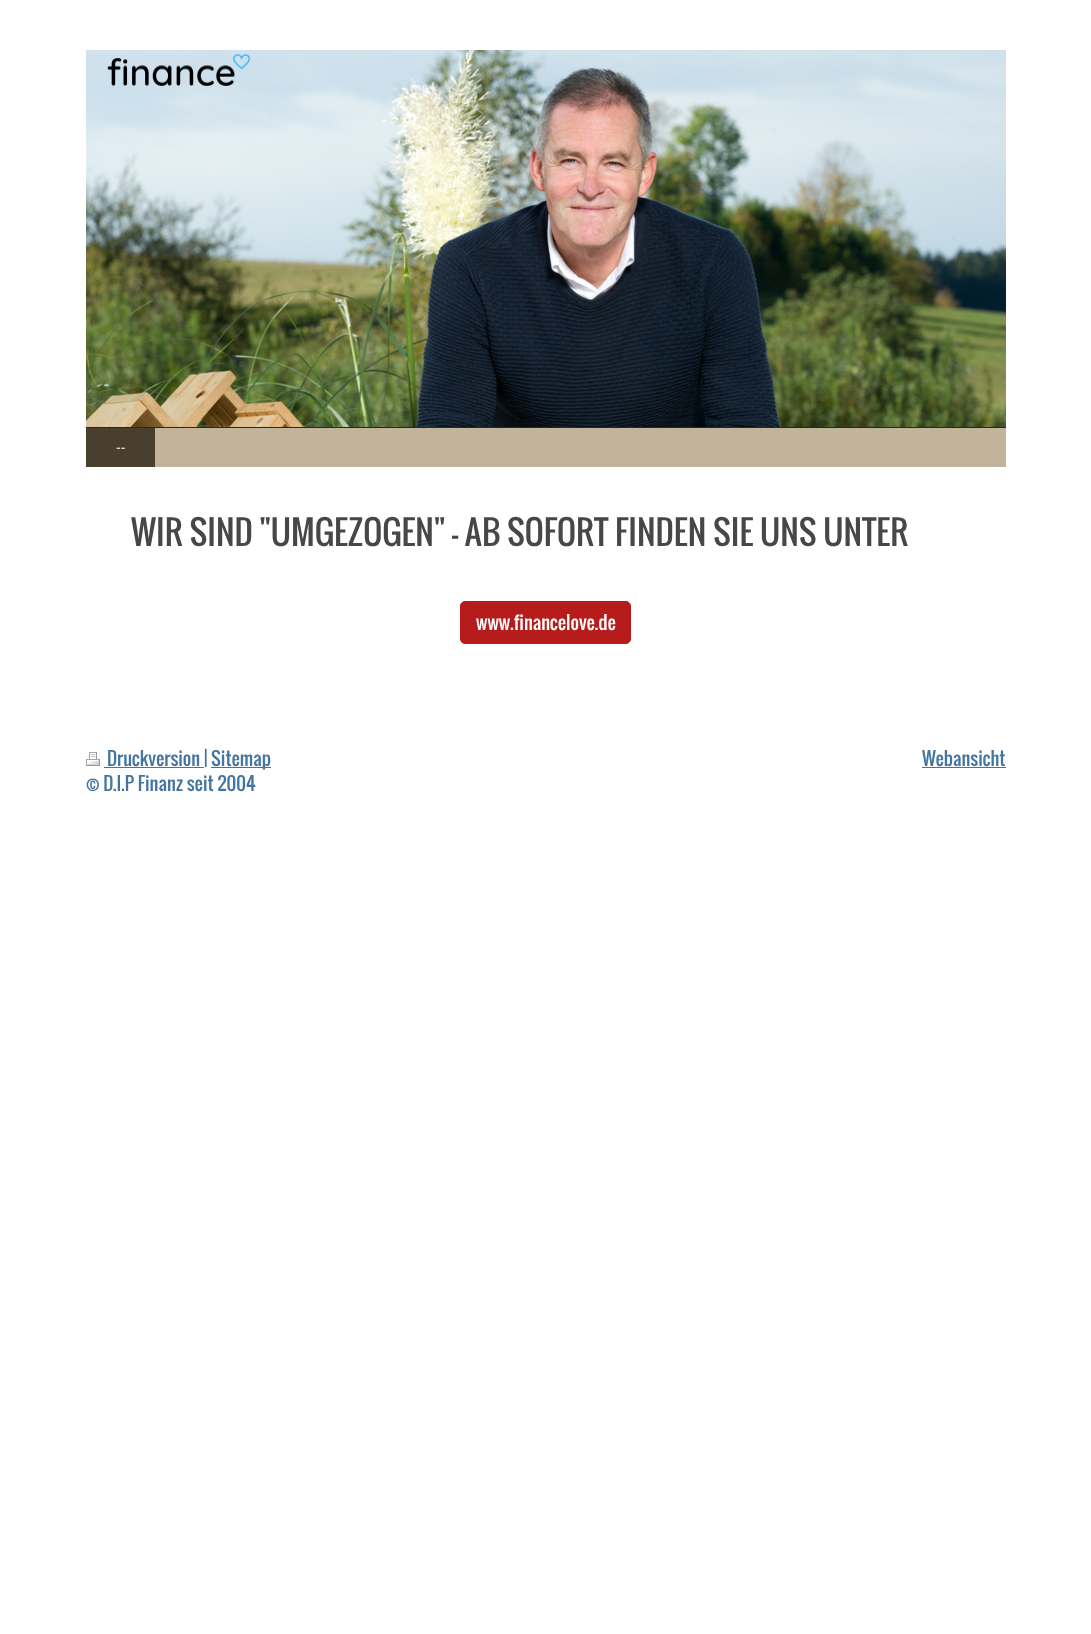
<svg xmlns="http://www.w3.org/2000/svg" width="1091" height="1634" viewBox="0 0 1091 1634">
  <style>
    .t1 { font: 14px Liberation Sans; fill: #edecea; }
    .t2 { font: 33px Oswald; fill: #474747; }
    .t3 { font: 18.25px Oswald; fill: #fff; }
    .t4 { font: 18.25px Oswald; fill: #4375a0; }
  </style>
  <rect width="100%" height="100%" fill="#fff"/>
  <image x="86" y="50" width="920" height="377" href="images/1.png"/>
  <image x="107" y="54" width="143" height="32" href="images/2.png"/>
  <rect x="155" y="428" width="851" height="39" fill="#c2b49a"/>
  <rect x="86" y="427" width="920" height="1" fill="#2b261e"/>
  <rect x="86" y="428" width="69" height="39" fill="#483f2f"/>
  <text x="116" y="452" class="t1">--</text>
  <text x="131" y="546" class="t2">WIR SIND "UMGEZOGEN" - AB SOFORT FINDEN SIE UNS UNTER</text>
  <rect x="460.5" y="601.5" width="170" height="42" rx="4.5" fill="#b71c1c" stroke="#b71c1c"/>
  <text x="476" y="630" class="t3">www.financelove.de</text>
  <image x="86" y="752" width="14" height="14" href="images/3.png"/>
  <rect x="104" y="767" width="100" height="1" fill="#4375a0"/>
  <text x="107" y="766" class="t4">Druckversion |</text>
  <rect x="211" y="767" width="60" height="1" fill="#4375a0"/>
  <text x="211" y="766" class="t4">Sitemap</text>
  <text x="86" y="791" class="t4">© D.I.P Finanz seit 2004</text>
  <text x="922" y="766" class="t4">Webansicht</text>
  <rect x="922" y="767" width="84" height="1" fill="#4375a0"/>
</svg>
